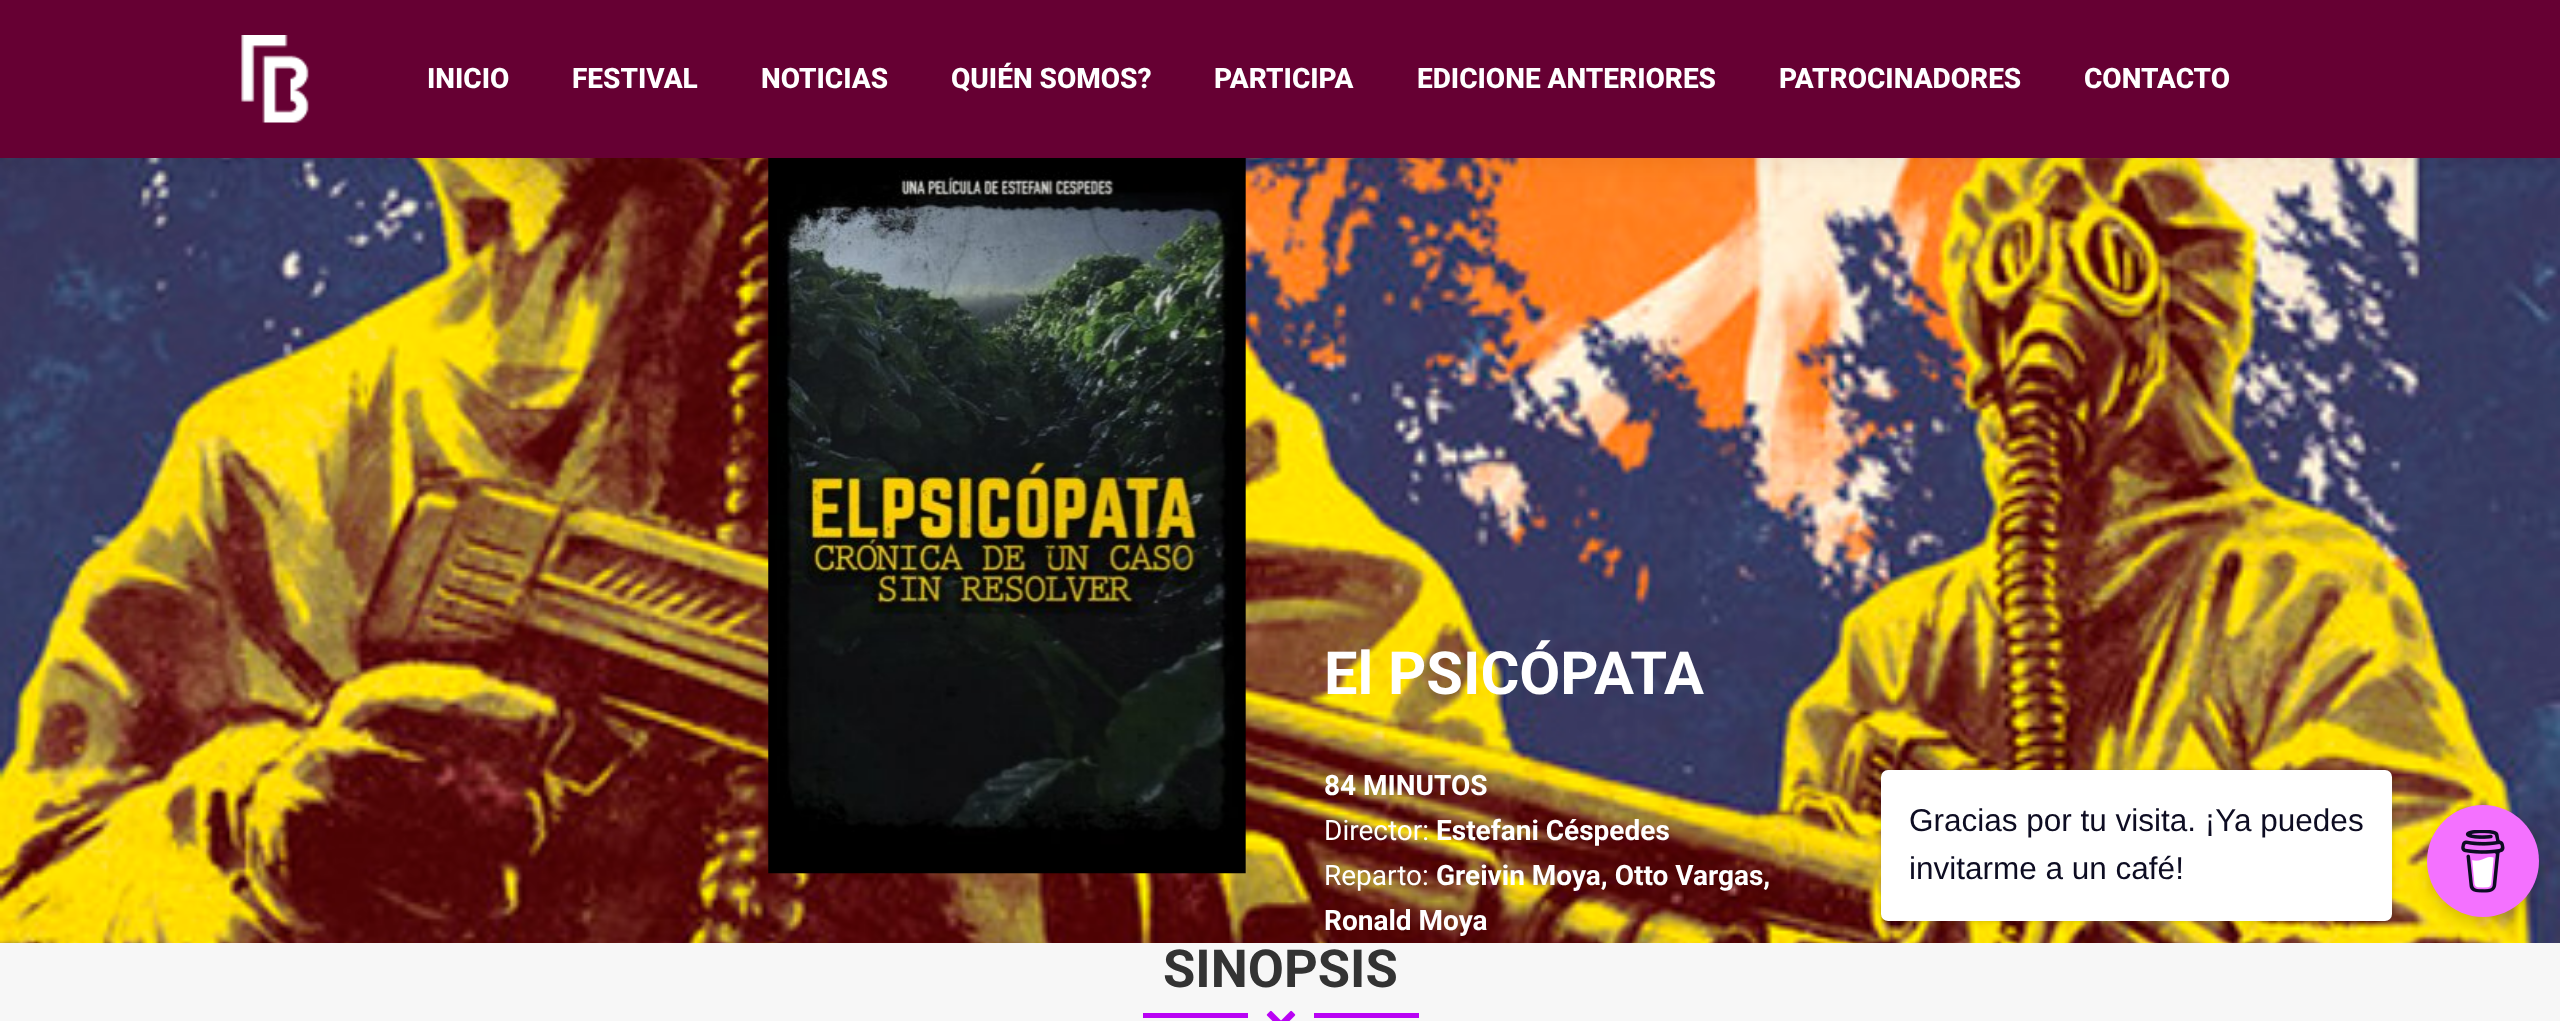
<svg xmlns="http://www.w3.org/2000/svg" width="2560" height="1021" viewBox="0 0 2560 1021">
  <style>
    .t1 { font: 800 28px Roboto; fill: #fff; }
    .t2 { font: bold 59.5px Roboto; fill: #fff; }
    .t3 { font: bold 28px Roboto; fill: #fff; }
    .t4 { font: 28px Roboto; fill: #fff; }
    .t5 { font: bold 52.5px Roboto; fill: #333; }
    .t6 { font: 31.5px Liberation Sans; fill: #0d0c22; }
  </style>
  <rect width="100%" height="100%" fill="#fff"/>
  <image x="0" y="158" width="2560" height="785" href="images/2.png"/>
  <image x="768" y="158" width="478" height="716" href="images/3.png"/>
  <rect x="-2" y="-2" width="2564" height="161" fill="#00000012" filter="blur(13px)"/>
  <rect x="0" y="0" width="2560" height="158" fill="#603"/>
  <image x="241" y="35" width="68" height="88" href="images/1.png"/>
  <text x="427" y="88" class="t1">INICIO</text>
  <text x="572" y="88" class="t1">FESTIVAL</text>
  <text x="761" y="88" class="t1">NOTICIAS</text>
  <text x="951" y="88" class="t1">QUIÉN SOMOS?</text>
  <text x="1214" y="88" class="t1">PARTICIPA</text>
  <text x="1417" y="88" class="t1">EDICIONE ANTERIORES</text>
  <text x="1779" y="88" class="t1">PATROCINADORES</text>
  <text x="2084" y="88" class="t1">CONTACTO</text>
  <text x="1324" y="694" class="t2">El PSICÓPATA</text>
  <text x="1324" y="795" class="t3">84 MINUTOS</text>
  <text x="1324" y="840" class="t4">Director:</text>
  <text x="1436" y="840" class="t3">Estefani Céspedes</text>
  <text x="1324" y="885" class="t4">Reparto:</text>
  <text x="1436" y="885" class="t3">Greivin Moya, Otto Vargas,</text>
  <text x="1324" y="930" class="t3">Ronald Moya</text>
  <rect x="0" y="943" width="2560" height="78" fill="#f7f7f7"/>
  <text x="1163" y="987" class="t5">SINOPSIS</text>
  <rect x="1143" y="1013" width="105" height="5" fill="#b903f4"/>
  <image x="1266" y="1010" width="30" height="11" href="images/4.png"/>
  <rect x="1314" y="1013" width="105" height="5" fill="#b903f4"/>
  <rect x="2427" y="812" width="112" height="112" rx="56" fill="#00000026" filter="blur(7px)"/>
  <circle cx="2483" cy="861" r="56" fill="#f471ff"/>
  <image x="2461" y="830" width="44" height="63" href="images/5.png"/>
  <rect x="1881" y="770" width="511" height="151" rx="7" fill="#00000026" filter="blur(2px)"/>
  <rect x="1881" y="774" width="511" height="150" rx="7" fill="#0000000d" filter="blur(4.5px)"/>
  <rect x="1881" y="770" width="511" height="151" rx="7" fill="#fff"/>
  <text x="1909" y="831" class="t6">Gracias por tu visita. ¡Ya puedes</text>
  <text x="1909" y="879" class="t6">invitarme a un café!</text>
</svg>
